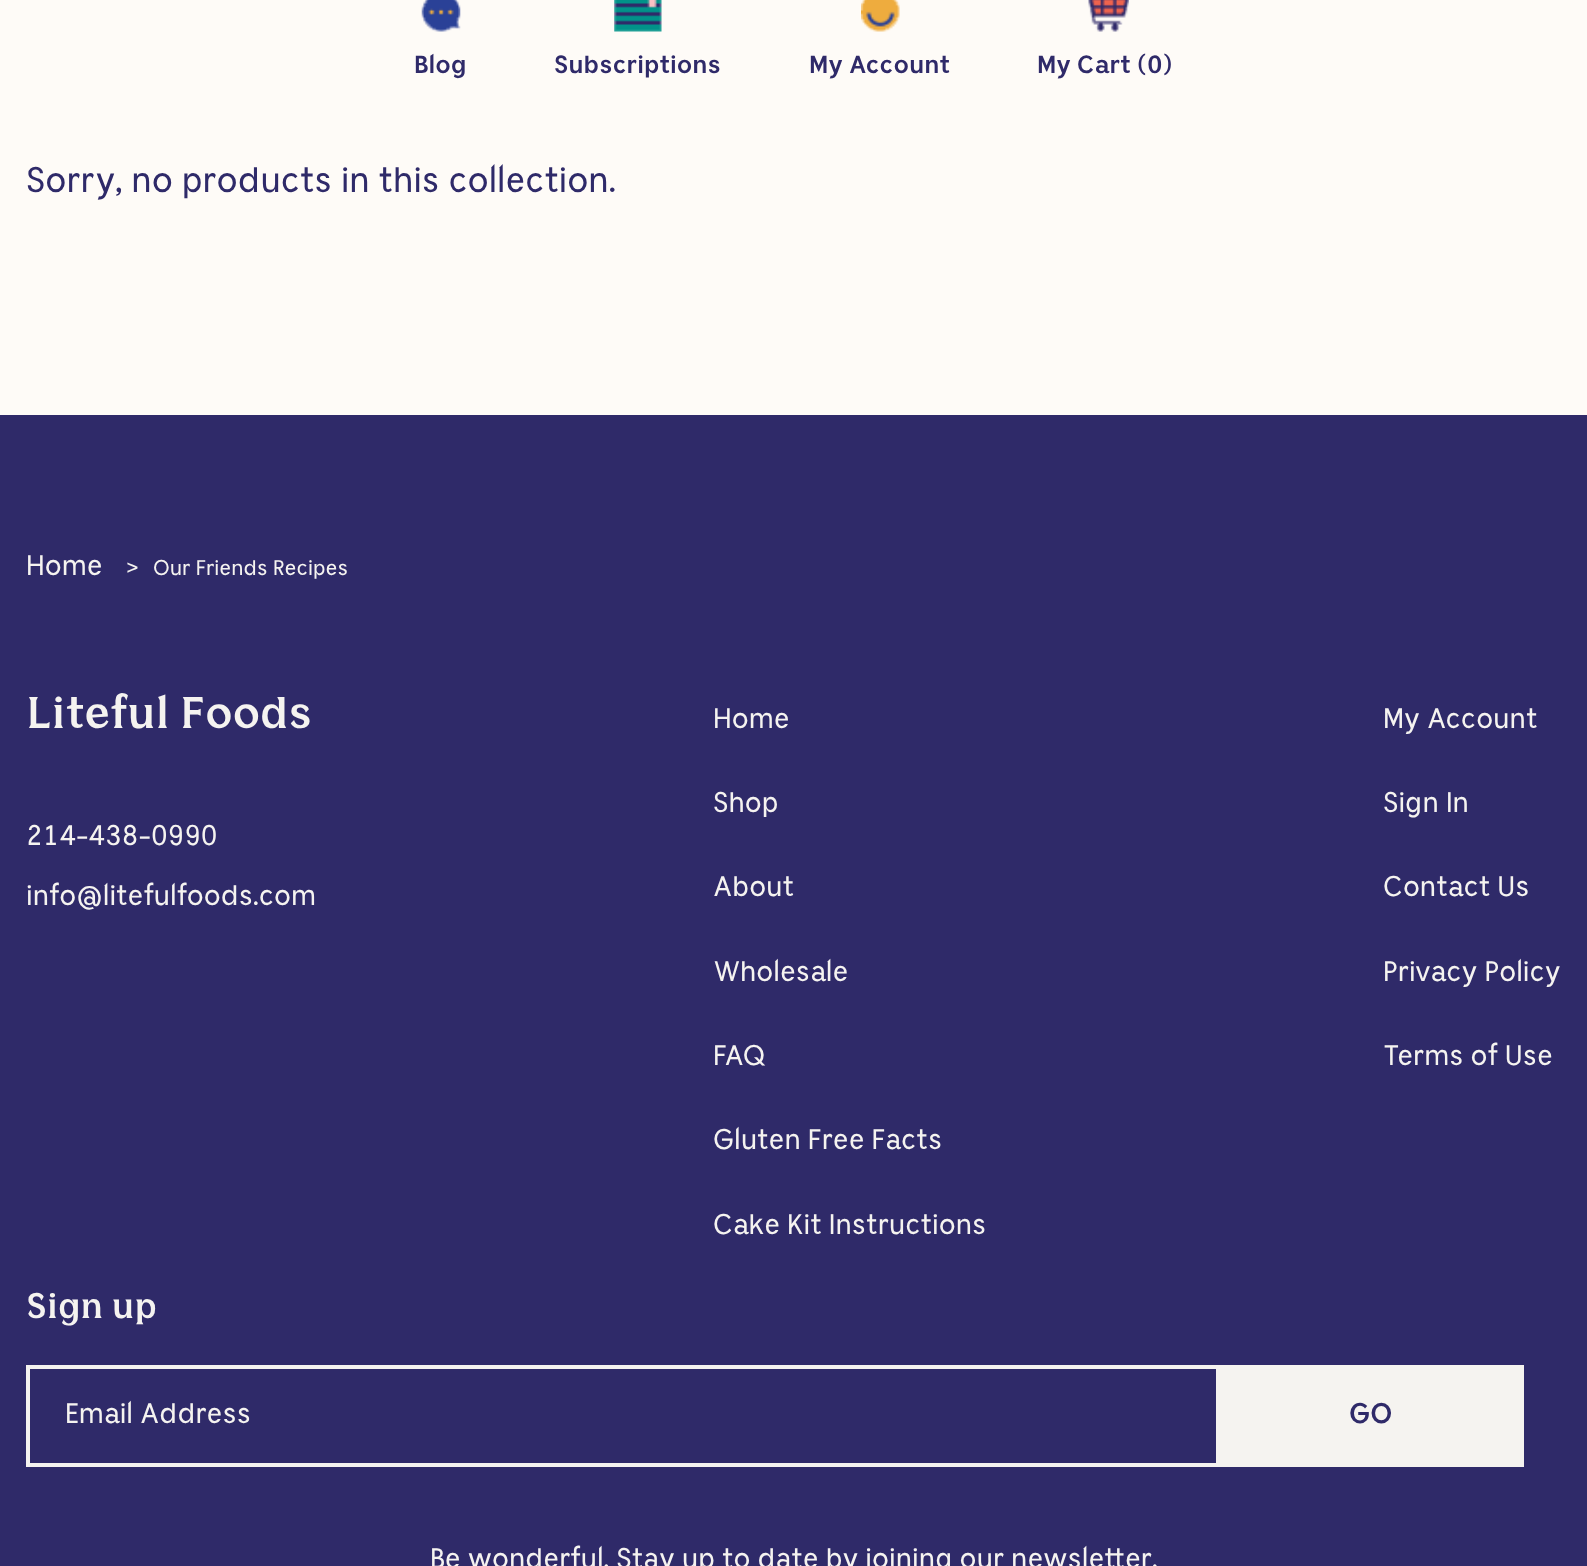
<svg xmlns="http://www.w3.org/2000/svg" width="1587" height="1566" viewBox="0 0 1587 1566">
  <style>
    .t1 { font: bold 24.5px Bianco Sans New; fill: #2f2a69; }
    .t2 { font: 35px Bianco Sans New; fill: #2f2a69; }
    .t3 { font: 28px Bianco Sans New; fill: #f5f3f0; }
    .t4 { font: 21px Bianco Sans New; fill: #f5f3f0; }
    .t5 { font: bold 43.75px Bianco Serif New; fill: #f5f3f0; }
    .t6 { font: bold 35px Bianco Serif New; fill: #f5f3f0; }
    .t7 { font: bold 28px Bianco Sans New; fill: #2f2a69; }
  </style>
  <rect width="100%" height="100%" fill="#fefbf7"/>
  <image x="421" y="0" width="40" height="32" href="images/1.png"/>
  <text x="414" y="73" class="t1">Blog</text>
  <image x="614" y="0" width="48" height="32" href="images/2.png"/>
  <text x="554" y="73" class="t1">Subscriptions</text>
  <image x="861" y="0" width="39" height="32" href="images/3.png"/>
  <text x="809" y="73" class="t1">My Account</text>
  <image x="1088" y="0" width="41" height="32" href="images/4.png"/>
  <text x="1037" y="73" class="t1">My Cart (0)</text>
  <text x="26" y="192" class="t2">Sorry, no products in this collection.</text>
  <rect x="0" y="415" width="1587" height="1151" fill="#2f2a69"/>
  <text x="26" y="575" class="t3">Home</text>
  <text x="126" y="575" class="t4">&gt;</text>
  <text x="153" y="575" class="t4">Our Friends Recipes</text>
  <text x="26" y="728" class="t5">Liteful Foods</text>
  <text x="26" y="845" class="t3">214-438-0990</text>
  <text x="26" y="905" class="t3">info@litefulfoods.com</text>
  <text x="713" y="728" class="t3">Home</text>
  <text x="713" y="812" class="t3">Shop</text>
  <text x="713" y="896" class="t3">About</text>
  <text x="713" y="981" class="t3">Wholesale</text>
  <text x="713" y="1065" class="t3">FAQ</text>
  <text x="713" y="1149" class="t3">Gluten Free Facts</text>
  <text x="713" y="1234" class="t3">Cake Kit Instructions</text>
  <text x="1383" y="728" class="t3">My Account</text>
  <text x="1383" y="812" class="t3">Sign In</text>
  <text x="1383" y="896" class="t3">Contact Us</text>
  <text x="1383" y="981" class="t3">Privacy Policy</text>
  <text x="1383" y="1065" class="t3">Terms of Use</text>
  <text x="26" y="1318" class="t6">Sign up</text>
  <rect x="28" y="1367" width="1225" height="98" fill="none" stroke="#f5f3f0" stroke-width="4"/>
  <text x="65" y="1423" class="t3">Email Address</text>
  <rect x="1216" y="1365" width="308" height="102" fill="#f5f3f0"/>
  <text x="1349" y="1423" class="t7">GO</text>
  <text x="430" y="1568" class="t3">Be wonderful. Stay up to date by joining our newsletter.</text>
</svg>
